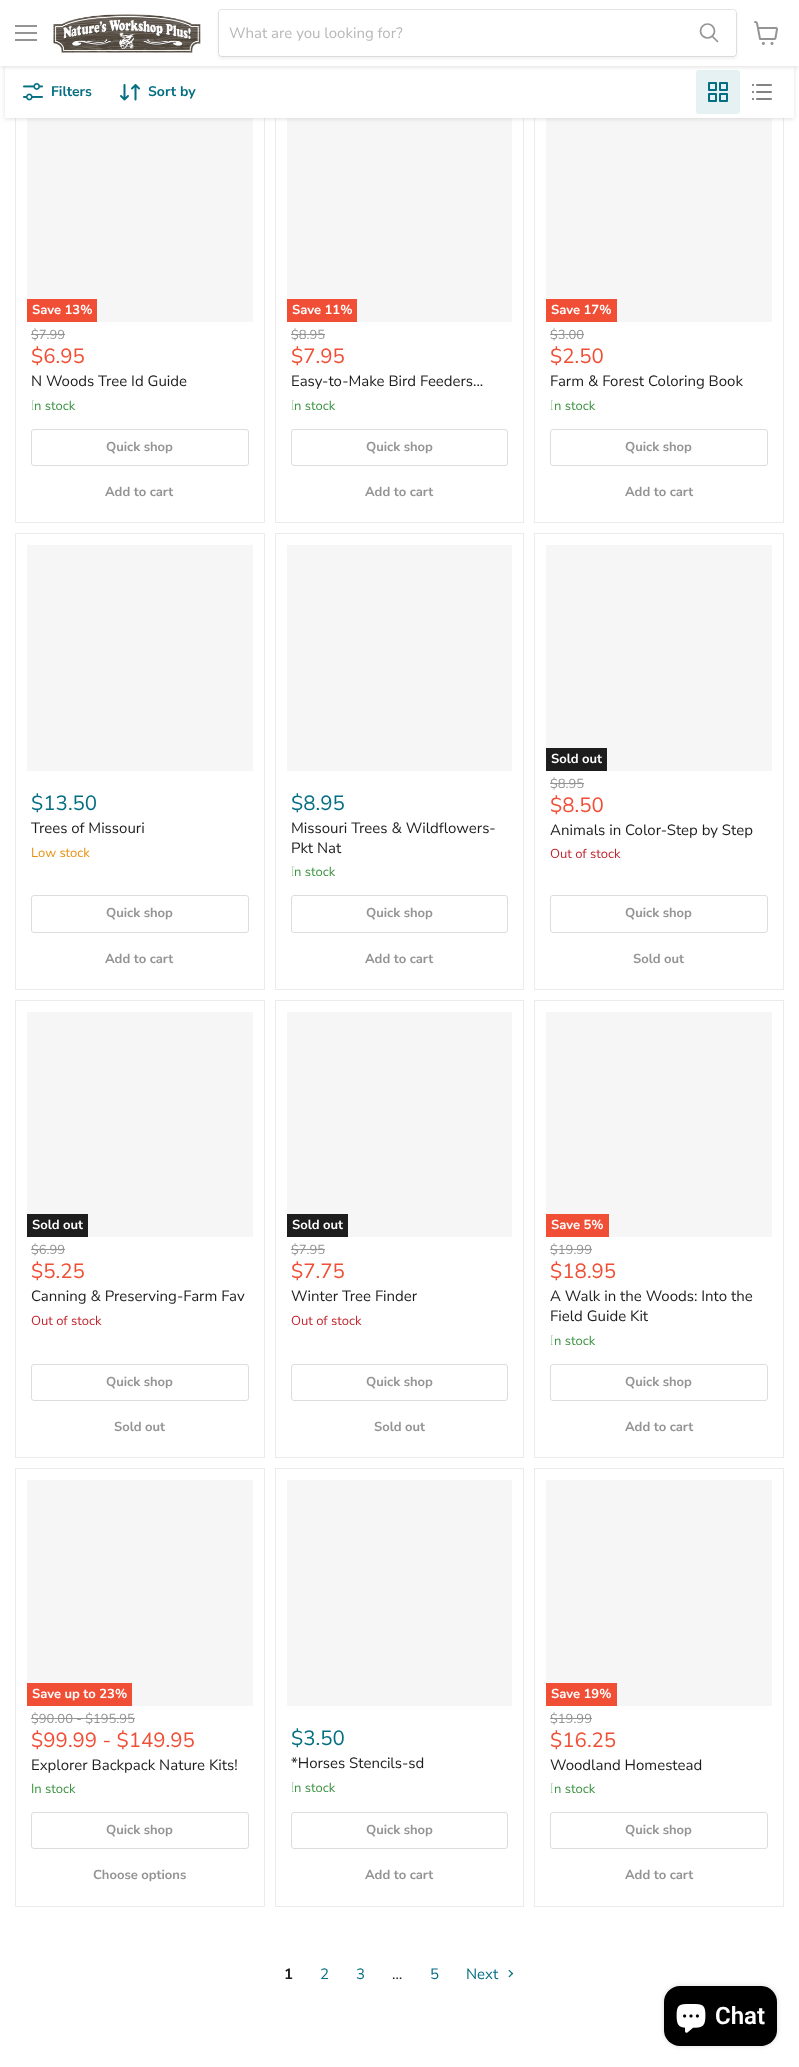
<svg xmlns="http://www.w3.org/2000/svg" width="799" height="2067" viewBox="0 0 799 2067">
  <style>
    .t1 { font: 15px Nunito Sans; fill: #b8b8b8; }
    .t2 { font: bold 14px Nunito Sans; fill: #046e82; }
    .t3 { font: bold 13px Nunito Sans; fill: #fff; }
    .t4 { font: 13px Nunito Sans; fill: #949494; }
    .t5 { font: 20.5px Nunito Sans; fill: #f04f36; }
    .t6 { font: 15px Nunito Sans; fill: #1d1d1d; }
    .t7 { font: 100 13px Noto Sans; fill: #3c9342; }
    .t8 { font: 13px Nunito Sans; fill: #3c9342; }
    .t9 { font: bold 13px Nunito Sans; fill: #949494; }
    .t10 { font: 20.5px Nunito Sans; fill: #046e82; }
    .t11 { font: 13px Nunito Sans; fill: #e99114; }
    .t12 { font: 13px Nunito Sans; fill: #bf262f; }
    .t13 { font: bold 15px Nunito Sans; fill: #1d1d1d; }
    .t14 { font: 15px Nunito Sans; fill: #046e82; }
    .t15 { font: 600 24px Roboto; fill: #fff; }
  </style>
  <rect width="100%" height="100%" fill="#fff"/>
  <rect x="15.5" y="84.5" width="249" height="438" fill="none" stroke="#ebebeb"/>
  <rect x="27" y="118" width="226" height="204" fill="#f6f6f6"/>
  <rect x="275.5" y="84.5" width="248" height="438" fill="none" stroke="#ebebeb"/>
  <rect x="287" y="118" width="225" height="204" fill="#f6f6f6"/>
  <rect x="534.5" y="84.5" width="249" height="438" fill="none" stroke="#ebebeb"/>
  <rect x="546" y="118" width="226" height="204" fill="#f6f6f6"/>
  <rect x="5" y="67" width="789" height="52" fill="#80808040" filter="blur(2px)"/>
  <rect x="5" y="66" width="789" height="52" fill="#fff"/>
  <rect x="696" y="70" width="44" height="44" rx="3" fill="#e6f1f3"/>
  <rect x="0" y="1" width="799" height="66" fill="#80808040" filter="blur(2px)"/>
  <rect x="0" y="0" width="799" height="66" fill="#fff"/>
  <rect x="15" y="25" width="22" height="2" fill="#949494"/>
  <rect x="15" y="32" width="22" height="2" fill="#949494"/>
  <rect x="15" y="39" width="22" height="2" fill="#949494"/>
  <image x="53" y="14" width="148" height="39" href="images/1.png"/>
  <rect x="218" y="11" width="519" height="48" rx="4" fill="#8080801c" filter="blur(1.5px)"/>
  <rect x="218.5" y="9.5" width="518" height="47" rx="3.5" fill="none" stroke="#80808033"/>
  <path d="M222 10H682V56H222C220.5 56 219 54.5 219 53V13C219 11.5 220.5 10 222 10Z" fill="#fff"/>
  <text x="229" y="38" class="t1">What are you looking for?</text>
  <path d="M682.5 10.5H733C734.5 10.5 735.5 11.5 735.5 13V53C735.5 54.5 734.5 55.5 733 55.5H682.5Z" fill="#fff" stroke="#fff"/>
  <path d="M717.5 41.5L712.5 36.5" fill="none" stroke="#949494" stroke-width="1.7" stroke-linecap="round"/>
  <circle cx="707.5" cy="31" r="7" fill="none" stroke="#949494" stroke-width="1.7"/>
  <image x="754" y="21" width="24" height="24" href="images/2.png"/>
  <image x="23" y="83" width="20" height="18" href="images/3.png"/>
  <text x="51" y="96" class="t2">Filters</text>
  <image x="120" y="84" width="20" height="17" href="images/4.png"/>
  <text x="148" y="96" class="t2">Sort by</text>
  <image x="708" y="82" width="20" height="20" href="images/5.png"/>
  <image x="752" y="84" width="20" height="16" href="images/6.png"/>
  <rect x="27" y="299" width="70" height="23" fill="#f04f36"/>
  <text x="32" y="314" class="t3">Save 13%</text>
  <text x="31" y="339" class="t4">$7.99</text>
  <rect x="31" y="334" width="34" height="1" fill="#949494"/>
  <text x="31" y="363" class="t5">$6.95</text>
  <text x="31" y="386" class="t6">N Woods Tree Id Guide</text>
  <text x="31" y="410" class="t7">I</text>
  <text x="34" y="410" class="t8">n stock</text>
  <rect x="31.5" y="429.5" width="217" height="36" rx="2.5" fill="none" stroke="#ddd"/>
  <text x="106" y="451" class="t9">Quick shop</text>
  <text x="105" y="496" class="t9">Add to cart</text>
  <rect x="287" y="299" width="70" height="23" fill="#f04f36"/>
  <text x="292" y="314" class="t3">Save 11%</text>
  <text x="291" y="339" class="t4">$8.95</text>
  <rect x="291" y="334" width="34" height="1" fill="#949494"/>
  <text x="291" y="363" class="t5">$7.95</text>
  <text x="291" y="386" class="t6">Easy-to-Make Bird Feeders...</text>
  <text x="291" y="410" class="t7">I</text>
  <text x="294" y="410" class="t8">n stock</text>
  <rect x="291.5" y="429.5" width="216" height="36" rx="2.5" fill="none" stroke="#ddd"/>
  <text x="366" y="451" class="t9">Quick shop</text>
  <text x="365" y="496" class="t9">Add to cart</text>
  <rect x="546" y="299" width="71" height="23" fill="#f04f36"/>
  <text x="551" y="314" class="t3">Save 17%</text>
  <text x="550" y="339" class="t4">$3.00</text>
  <rect x="550" y="334" width="34" height="1" fill="#949494"/>
  <text x="550" y="363" class="t5">$2.50</text>
  <text x="550" y="386" class="t6">Farm &amp; Forest Coloring Book</text>
  <text x="550" y="410" class="t7">I</text>
  <text x="554" y="410" class="t8">n stock</text>
  <rect x="550.5" y="429.5" width="217" height="36" rx="2.5" fill="none" stroke="#ddd"/>
  <text x="625" y="451" class="t9">Quick shop</text>
  <text x="625" y="496" class="t9">Add to cart</text>
  <rect x="15.5" y="533.5" width="249" height="456" fill="none" stroke="#ebebeb"/>
  <rect x="27" y="545" width="226" height="226" fill="#f6f6f6"/>
  <text x="31" y="810" class="t10">$13.50</text>
  <text x="31" y="833" class="t6">Trees of Missouri</text>
  <text x="31" y="857" class="t11">Low stock</text>
  <rect x="31.5" y="895.5" width="217" height="37" rx="2.5" fill="none" stroke="#ddd"/>
  <text x="106" y="917" class="t9">Quick shop</text>
  <text x="105" y="963" class="t9">Add to cart</text>
  <rect x="275.5" y="533.5" width="248" height="456" fill="none" stroke="#ebebeb"/>
  <rect x="287" y="545" width="225" height="226" fill="#f6f6f6"/>
  <text x="291" y="810" class="t10">$8.95</text>
  <text x="291" y="833" class="t6">Missouri Trees &amp; Wildflowers-</text>
  <text x="291" y="853" class="t6">Pkt Nat</text>
  <text x="291" y="876" class="t7">I</text>
  <text x="294" y="876" class="t8">n stock</text>
  <rect x="291.5" y="895.5" width="216" height="37" rx="2.5" fill="none" stroke="#ddd"/>
  <text x="366" y="917" class="t9">Quick shop</text>
  <text x="365" y="963" class="t9">Add to cart</text>
  <rect x="534.5" y="533.5" width="249" height="456" fill="none" stroke="#ebebeb"/>
  <rect x="546" y="545" width="226" height="226" fill="#f6f6f6"/>
  <rect x="546" y="748" width="61" height="23" fill="#1d1d1d"/>
  <text x="551" y="763" class="t3">Sold out</text>
  <text x="550" y="788" class="t4">$8.95</text>
  <rect x="550" y="783" width="34" height="1" fill="#949494"/>
  <text x="550" y="812" class="t5">$8.50</text>
  <text x="550" y="835" class="t6">Animals in Color-Step by Step</text>
  <text x="550" y="858" class="t12">Out of stock</text>
  <rect x="550.5" y="895.5" width="217" height="37" rx="2.5" fill="none" stroke="#ddd"/>
  <text x="625" y="917" class="t9">Quick shop</text>
  <text x="633" y="963" class="t9">Sold out</text>
  <rect x="15.5" y="1000.5" width="249" height="457" fill="none" stroke="#ebebeb"/>
  <rect x="27" y="1012" width="226" height="225" fill="#f6f6f6"/>
  <rect x="27" y="1214" width="61" height="23" fill="#1d1d1d"/>
  <text x="32" y="1229" class="t3">Sold out</text>
  <text x="31" y="1254" class="t4">$6.99</text>
  <rect x="31" y="1249" width="34" height="1" fill="#949494"/>
  <text x="31" y="1278" class="t5">$5.25</text>
  <text x="31" y="1301" class="t6">Canning &amp; Preserving-Farm Fav</text>
  <text x="31" y="1325" class="t12">Out of stock</text>
  <rect x="31.5" y="1364.5" width="217" height="36" rx="2.5" fill="none" stroke="#ddd"/>
  <text x="106" y="1386" class="t9">Quick shop</text>
  <text x="114" y="1431" class="t9">Sold out</text>
  <rect x="275.5" y="1000.5" width="248" height="457" fill="none" stroke="#ebebeb"/>
  <rect x="287" y="1012" width="225" height="225" fill="#f6f6f6"/>
  <rect x="287" y="1214" width="61" height="23" fill="#1d1d1d"/>
  <text x="292" y="1229" class="t3">Sold out</text>
  <text x="291" y="1254" class="t4">$7.95</text>
  <rect x="291" y="1249" width="34" height="1" fill="#949494"/>
  <text x="291" y="1278" class="t5">$7.75</text>
  <text x="291" y="1301" class="t6">Winter Tree Finder</text>
  <text x="291" y="1325" class="t12">Out of stock</text>
  <rect x="291.5" y="1364.5" width="216" height="36" rx="2.5" fill="none" stroke="#ddd"/>
  <text x="366" y="1386" class="t9">Quick shop</text>
  <text x="374" y="1431" class="t9">Sold out</text>
  <rect x="534.5" y="1000.5" width="249" height="457" fill="none" stroke="#ebebeb"/>
  <rect x="546" y="1012" width="226" height="225" fill="#f6f6f6"/>
  <rect x="546" y="1214" width="63" height="23" fill="#f04f36"/>
  <text x="551" y="1229" class="t3">Save 5%</text>
  <text x="550" y="1254" class="t4">$19.99</text>
  <rect x="550" y="1249" width="42" height="1" fill="#949494"/>
  <text x="550" y="1278" class="t5">$18.95</text>
  <text x="550" y="1301" class="t6">A Walk in the Woods: Into the</text>
  <text x="550" y="1321" class="t6">Field Guide Kit</text>
  <text x="550" y="1345" class="t7">I</text>
  <text x="554" y="1345" class="t8">n stock</text>
  <rect x="550.5" y="1364.5" width="217" height="36" rx="2.5" fill="none" stroke="#ddd"/>
  <text x="625" y="1386" class="t9">Quick shop</text>
  <text x="625" y="1431" class="t9">Add to cart</text>
  <rect x="15.5" y="1468.5" width="249" height="438" fill="none" stroke="#ebebeb"/>
  <rect x="27" y="1480" width="226" height="226" fill="#f6f6f6"/>
  <rect x="27" y="1683" width="105" height="23" fill="#f04f36"/>
  <text x="32" y="1698" class="t3">Save up to 23%</text>
  <text x="31" y="1723" class="t4">$90.00 - $195.95</text>
  <rect x="31" y="1718" width="104" height="1" fill="#949494"/>
  <text x="31" y="1747" class="t5">$99.99 - $149.95</text>
  <text x="31" y="1770" class="t6">Explorer Backpack Nature Kits!</text>
  <text x="31" y="1793" class="t8">In stock</text>
  <rect x="31.5" y="1812.5" width="217" height="36" rx="2.5" fill="none" stroke="#ddd"/>
  <text x="106" y="1834" class="t9">Quick shop</text>
  <text x="93" y="1879" class="t9">Choose options</text>
  <rect x="275.5" y="1468.5" width="248" height="438" fill="none" stroke="#ebebeb"/>
  <rect x="287" y="1480" width="225" height="226" fill="#f6f6f6"/>
  <text x="291" y="1745" class="t10">$3.50</text>
  <text x="291" y="1768" class="t6">*Horses Stencils-sd</text>
  <text x="291" y="1792" class="t7">I</text>
  <text x="294" y="1792" class="t8">n stock</text>
  <rect x="291.5" y="1812.5" width="216" height="36" rx="2.5" fill="none" stroke="#ddd"/>
  <text x="366" y="1834" class="t9">Quick shop</text>
  <text x="365" y="1879" class="t9">Add to cart</text>
  <rect x="534.5" y="1468.5" width="249" height="438" fill="none" stroke="#ebebeb"/>
  <rect x="546" y="1480" width="226" height="226" fill="#f6f6f6"/>
  <rect x="546" y="1683" width="71" height="23" fill="#f04f36"/>
  <text x="551" y="1698" class="t3">Save 19%</text>
  <text x="550" y="1723" class="t4">$19.99</text>
  <rect x="550" y="1718" width="42" height="1" fill="#949494"/>
  <text x="550" y="1747" class="t5">$16.25</text>
  <text x="550" y="1770" class="t6">Woodland Homestead</text>
  <text x="550" y="1793" class="t7">I</text>
  <text x="554" y="1793" class="t8">n stock</text>
  <rect x="550.5" y="1812.5" width="217" height="36" rx="2.5" fill="none" stroke="#ddd"/>
  <text x="625" y="1834" class="t9">Quick shop</text>
  <text x="625" y="1879" class="t9">Add to cart</text>
  <text x="284" y="1979" class="t13">1</text>
  <text x="320" y="1979" class="t14">2</text>
  <text x="356" y="1979" class="t14">3</text>
  <text x="392" y="1979" class="t6">…</text>
  <text x="430" y="1979" class="t14">5</text>
  <text x="466" y="1979" class="t14">Next</text>
  <image x="508" y="1970" width="6" height="8" href="images/7.png"/>
  <rect x="664" y="1986" width="113" height="60" rx="16" fill="#00000026" filter="blur(2.5px)"/>
  <rect x="664" y="1986" width="113" height="60" rx="16" fill="#000"/>
  <image x="676" y="2004" width="30" height="29" href="images/8.png"/>
  <text x="715" y="2024" class="t15">Chat</text>
</svg>
